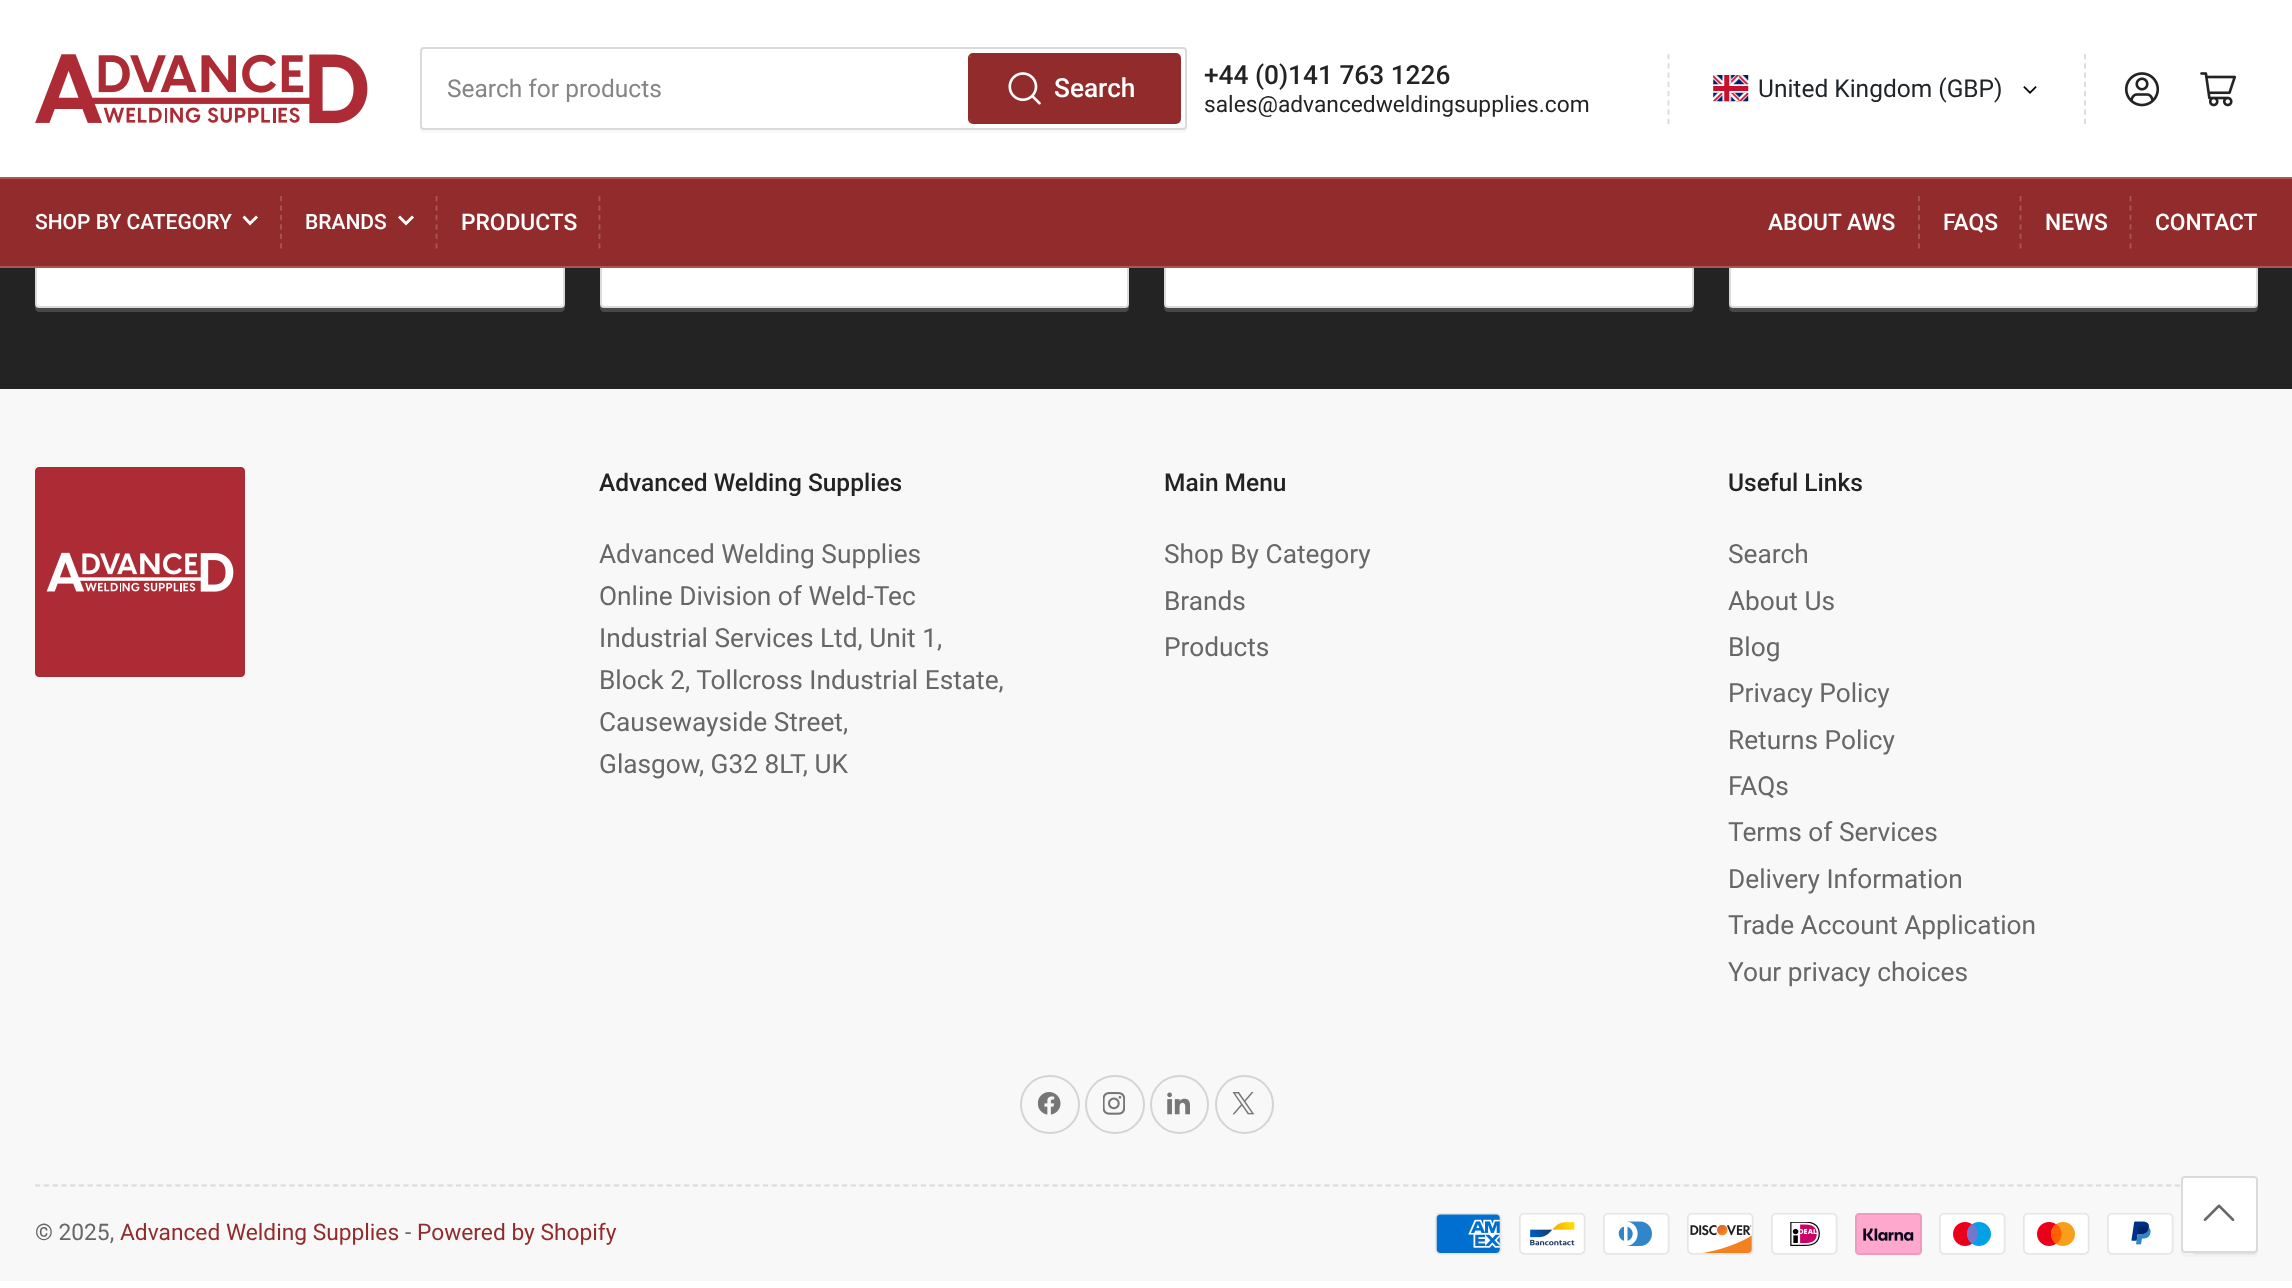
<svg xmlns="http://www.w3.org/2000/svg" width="2292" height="1288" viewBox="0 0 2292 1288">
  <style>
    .t1 { font: 24.5px Roboto; fill: #858585; }
    .t2 { font: 500 26.25px Roboto; fill: #fff; }
    .t3 { font: 500 26.25px Roboto; fill: #232323; }
    .t4 { font: 22.75px Roboto; fill: #232323; }
    .t5 { font: 24.5px Roboto; fill: #212529; }
    .t6 { font: 500 21px Roboto; fill: #fff; }
    .t7 { font: 500 22.75px Roboto; fill: #fff; }
    .t8 { font: 500 24.5px Roboto; fill: #232323; }
    .t9 { font: 26.25px Roboto; fill: #676767; }
    .t10 { font: 22.75px Roboto; fill: #676767; }
    .t11 { font: 22.75px Roboto; fill: #922c2c; }
  </style>
  <rect width="100%" height="100%" fill="#fff"/>
  <rect x="0" y="268" width="2292" height="121" fill="#232323"/>
  <path d="M35 304V308C35 310 37 312 39 312H561C563 312 565 310 565 308V306C564 307 563 308 562 308H38C37 308 35 306 35 304Z" fill="#484848"/>
  <rect x="36" y="101" width="528" height="206" rx="3" fill="#fff" stroke="#dadada" stroke-width="2"/>
  <path d="M600 106V308C600 310 602 312 604 312H1125C1127 312 1129 310 1129 308V106V304C1129 306 1127 308 1125 308H604C602 308 600 306 600 304Z" fill="#484848"/>
  <rect x="601" y="101" width="527" height="206" rx="3" fill="#fff" stroke="#dadada" stroke-width="2"/>
  <path d="M1164 306V308C1164 310 1166 312 1168 312H1690C1692 312 1694 310 1694 308V304C1694 306 1692 308 1690 308H1167C1166 308 1165 307 1164 306Z" fill="#484848"/>
  <rect x="1165" y="101" width="528" height="206" rx="3" fill="#fff" stroke="#dadada" stroke-width="2"/>
  <path d="M1729 304V308C1729 310 1731 312 1733 312H2254C2256 312 2258 310 2258 308V107V105V304C2258 306 2256 308 2254 308H1732C1731 308 1729 306 1729 304Z" fill="#484848"/>
  <rect x="1730" y="101" width="527" height="206" rx="3" fill="#fff" stroke="#dadada" stroke-width="2"/>
  <rect x="35" y="100" width="2223" height="77" fill="#fff"/>
  <image x="35" y="54" width="333" height="69" href="images/1.png"/>
  <path d="M420 126V129C420 131 422 133 424 133H1183C1185 133 1187 131 1187 129V55L1186 53V126C1186 128 1185 130 1183 130H424C422 130 420 128 420 126Z" fill="#f8f8f8"/>
  <rect x="421" y="48" width="765" height="81" rx="3" fill="#fff" stroke="#dadada" stroke-width="2"/>
  <text x="447" y="97" class="t1">Search for products</text>
  <rect x="969" y="54" width="211" height="69" rx="4" fill="none" stroke="#922c2c" stroke-width="2"/>
  <rect x="970" y="54" width="210" height="69" rx="4" fill="#922c2c"/>
  <image x="1008" y="72" width="33" height="33" href="images/2.png"/>
  <text x="1054" y="97" class="t2">Search</text>
  <text x="1204" y="84" class="t3">+44 (0)141 763 1226</text>
  <text x="1204" y="112" class="t4">sales@advancedweldingsupplies.com</text>
  <path d="M2085 54V124" fill="none" stroke="#dadada" stroke-width="1.8" stroke-dasharray="5.25 4.01"/>
  <path d="M1668.5 54V124" fill="none" stroke="#dadada" stroke-width="1.8" stroke-dasharray="5.25 4.01"/>
  <image x="2023" y="86" width="14" height="8" href="images/3.png"/>
  <image x="1713" y="75" width="36" height="27" href="images/4.png"/>
  <rect x="1714" y="76" width="33" height="25" fill="none" stroke="#0000000d" stroke-width="2"/>
  <text x="1758" y="97" class="t5">United Kingdom (GBP)</text>
  <image x="2124" y="72" width="36" height="35" href="images/5.png"/>
  <image x="2200" y="72" width="36" height="35" href="images/6.png"/>
  <rect x="0" y="179" width="2292" height="87" fill="#922c2c"/>
  <rect x="0" y="177" width="2292" height="2" fill="#a85656"/>
  <rect x="0" y="266" width="2292" height="2" fill="#a85656"/>
  <text x="35" y="229" class="t6">SHOP BY CATEGORY</text>
  <path d="M256 217.5L250 223.5L244.5 217.5" fill="none" stroke="#fff" stroke-width="2.9" stroke-linecap="square"/>
  <path d="M281 196V248.5" fill="none" stroke="#a85656" stroke-width="1.8" stroke-dasharray="5.25 4.2"/>
  <text x="305" y="229" class="t6">BRANDS</text>
  <path d="M412 217.5L406 223.5L400 217.5" fill="none" stroke="#fff" stroke-width="2.9" stroke-linecap="square"/>
  <path d="M436.5 196V248.5" fill="none" stroke="#a85656" stroke-width="1.8" stroke-dasharray="5.25 4.2"/>
  <text x="461" y="230" class="t7">PRODUCTS</text>
  <path d="M599.5 196V248.5" fill="none" stroke="#a85656" stroke-width="1.8" stroke-dasharray="5.25 4.2"/>
  <text x="1768" y="230" class="t7">ABOUT AWS</text>
  <path d="M1919 196V248.5" fill="none" stroke="#a85656" stroke-width="1.8" stroke-dasharray="5.25 4.2"/>
  <text x="1943" y="230" class="t7">FAQS</text>
  <path d="M2020.5 196V248.5" fill="none" stroke="#a85656" stroke-width="1.8" stroke-dasharray="5.25 4.2"/>
  <text x="2045" y="230" class="t7">NEWS</text>
  <path d="M2130.5 196V248.5" fill="none" stroke="#a85656" stroke-width="1.8" stroke-dasharray="5.25 4.2"/>
  <text x="2155" y="230" class="t7">CONTACT</text>
  <rect x="0" y="389" width="2292" height="892" fill="#f8f8f8"/>
  <image x="35" y="467" width="210" height="210" href="images/7.png"/>
  <text x="599" y="491" class="t8">Advanced Welding Supplies</text>
  <text x="599" y="563" class="t9">Advanced Welding Supplies</text>
  <text x="599" y="605" class="t9">Online Division of Weld-Tec</text>
  <text x="599" y="647" class="t9">Industrial Services Ltd, Unit 1,</text>
  <text x="599" y="689" class="t9">Block 2, Tollcross Industrial Estate,</text>
  <text x="599" y="731" class="t9">Causewayside Street,</text>
  <text x="599" y="773" class="t9">Glasgow, G32 8LT, UK</text>
  <text x="1164" y="491" class="t8">Main Menu</text>
  <text x="1164" y="563" class="t9">Shop By Category</text>
  <text x="1164" y="610" class="t9">Brands</text>
  <text x="1164" y="656" class="t9">Products</text>
  <text x="1728" y="491" class="t8">Useful Links</text>
  <text x="1728" y="563" class="t9">Search</text>
  <text x="1728" y="610" class="t9">About Us</text>
  <text x="1728" y="656" class="t9">Blog</text>
  <text x="1728" y="702" class="t9">Privacy Policy</text>
  <text x="1728" y="749" class="t9">Returns Policy</text>
  <text x="1728" y="795" class="t9">FAQs</text>
  <text x="1728" y="841" class="t9">Terms of Services</text>
  <text x="1728" y="888" class="t9">Delivery Information</text>
  <text x="1728" y="934" class="t9">Trade Account Application</text>
  <text x="1728" y="981" class="t9">Your privacy choices</text>
  <rect x="1021" y="1076" width="58" height="57" rx="28.5" fill="none" stroke="#d4d4d4" stroke-width="2"/>
  <image x="1038" y="1092" width="23" height="23" href="images/8.png"/>
  <rect x="1086" y="1076" width="58" height="57" rx="28.5" fill="none" stroke="#d4d4d4" stroke-width="2"/>
  <image x="1103" y="1092" width="22" height="23" href="images/9.png"/>
  <circle cx="1179.5" cy="1104.5" r="28.5" fill="none" stroke="#d4d4d4" stroke-width="2"/>
  <image x="1167" y="1092" width="23" height="23" href="images/10.png"/>
  <circle cx="1244.5" cy="1104.5" r="28.5" fill="none" stroke="#d4d4d4" stroke-width="2"/>
  <image x="1232" y="1092" width="23" height="23" href="images/11.png"/>
  <path d="M35 1185.5H2257.5" fill="none" stroke="#dadada" stroke-width="1.8" stroke-dasharray="5.25 3.52"/>
  <text x="35" y="1240" class="t10">© 2025,</text>
  <text x="120" y="1240" class="t11">Advanced Welding Supplies</text>
  <text x="405" y="1240" class="t10">-</text>
  <text x="417" y="1240" class="t11">Powered by Shopify</text>
  <image x="1435" y="1213" width="67" height="42" href="images/12.png"/>
  <image x="1519" y="1213" width="67" height="42" href="images/13.png"/>
  <image x="1603" y="1213" width="67" height="42" href="images/14.png"/>
  <image x="1687" y="1213" width="67" height="42" href="images/15.png"/>
  <image x="1771" y="1213" width="67" height="42" href="images/16.png"/>
  <image x="1855" y="1213" width="67" height="42" href="images/17.png"/>
  <image x="1939" y="1213" width="67" height="42" href="images/18.png"/>
  <image x="2023" y="1213" width="67" height="42" href="images/19.png"/>
  <image x="2107" y="1213" width="67" height="42" href="images/20.png"/>
  <image x="2193" y="1249" width="65" height="6" href="images/21.png"/>
  <path d="M2181 1251V1253C2181 1255 2183 1257 2185 1257H2254C2256 1257 2258 1255 2258 1253V1184V1182V1250C2258 1251 2256 1253 2254 1253H2184C2183 1253 2182 1252 2181 1251Z" fill="#dadada33"/>
  <rect x="2182" y="1177" width="75" height="75" rx="3" fill="#fff" stroke="#dadada" stroke-width="2"/>
  <image x="2203" y="1204" width="32" height="17" href="images/22.png"/>
</svg>
